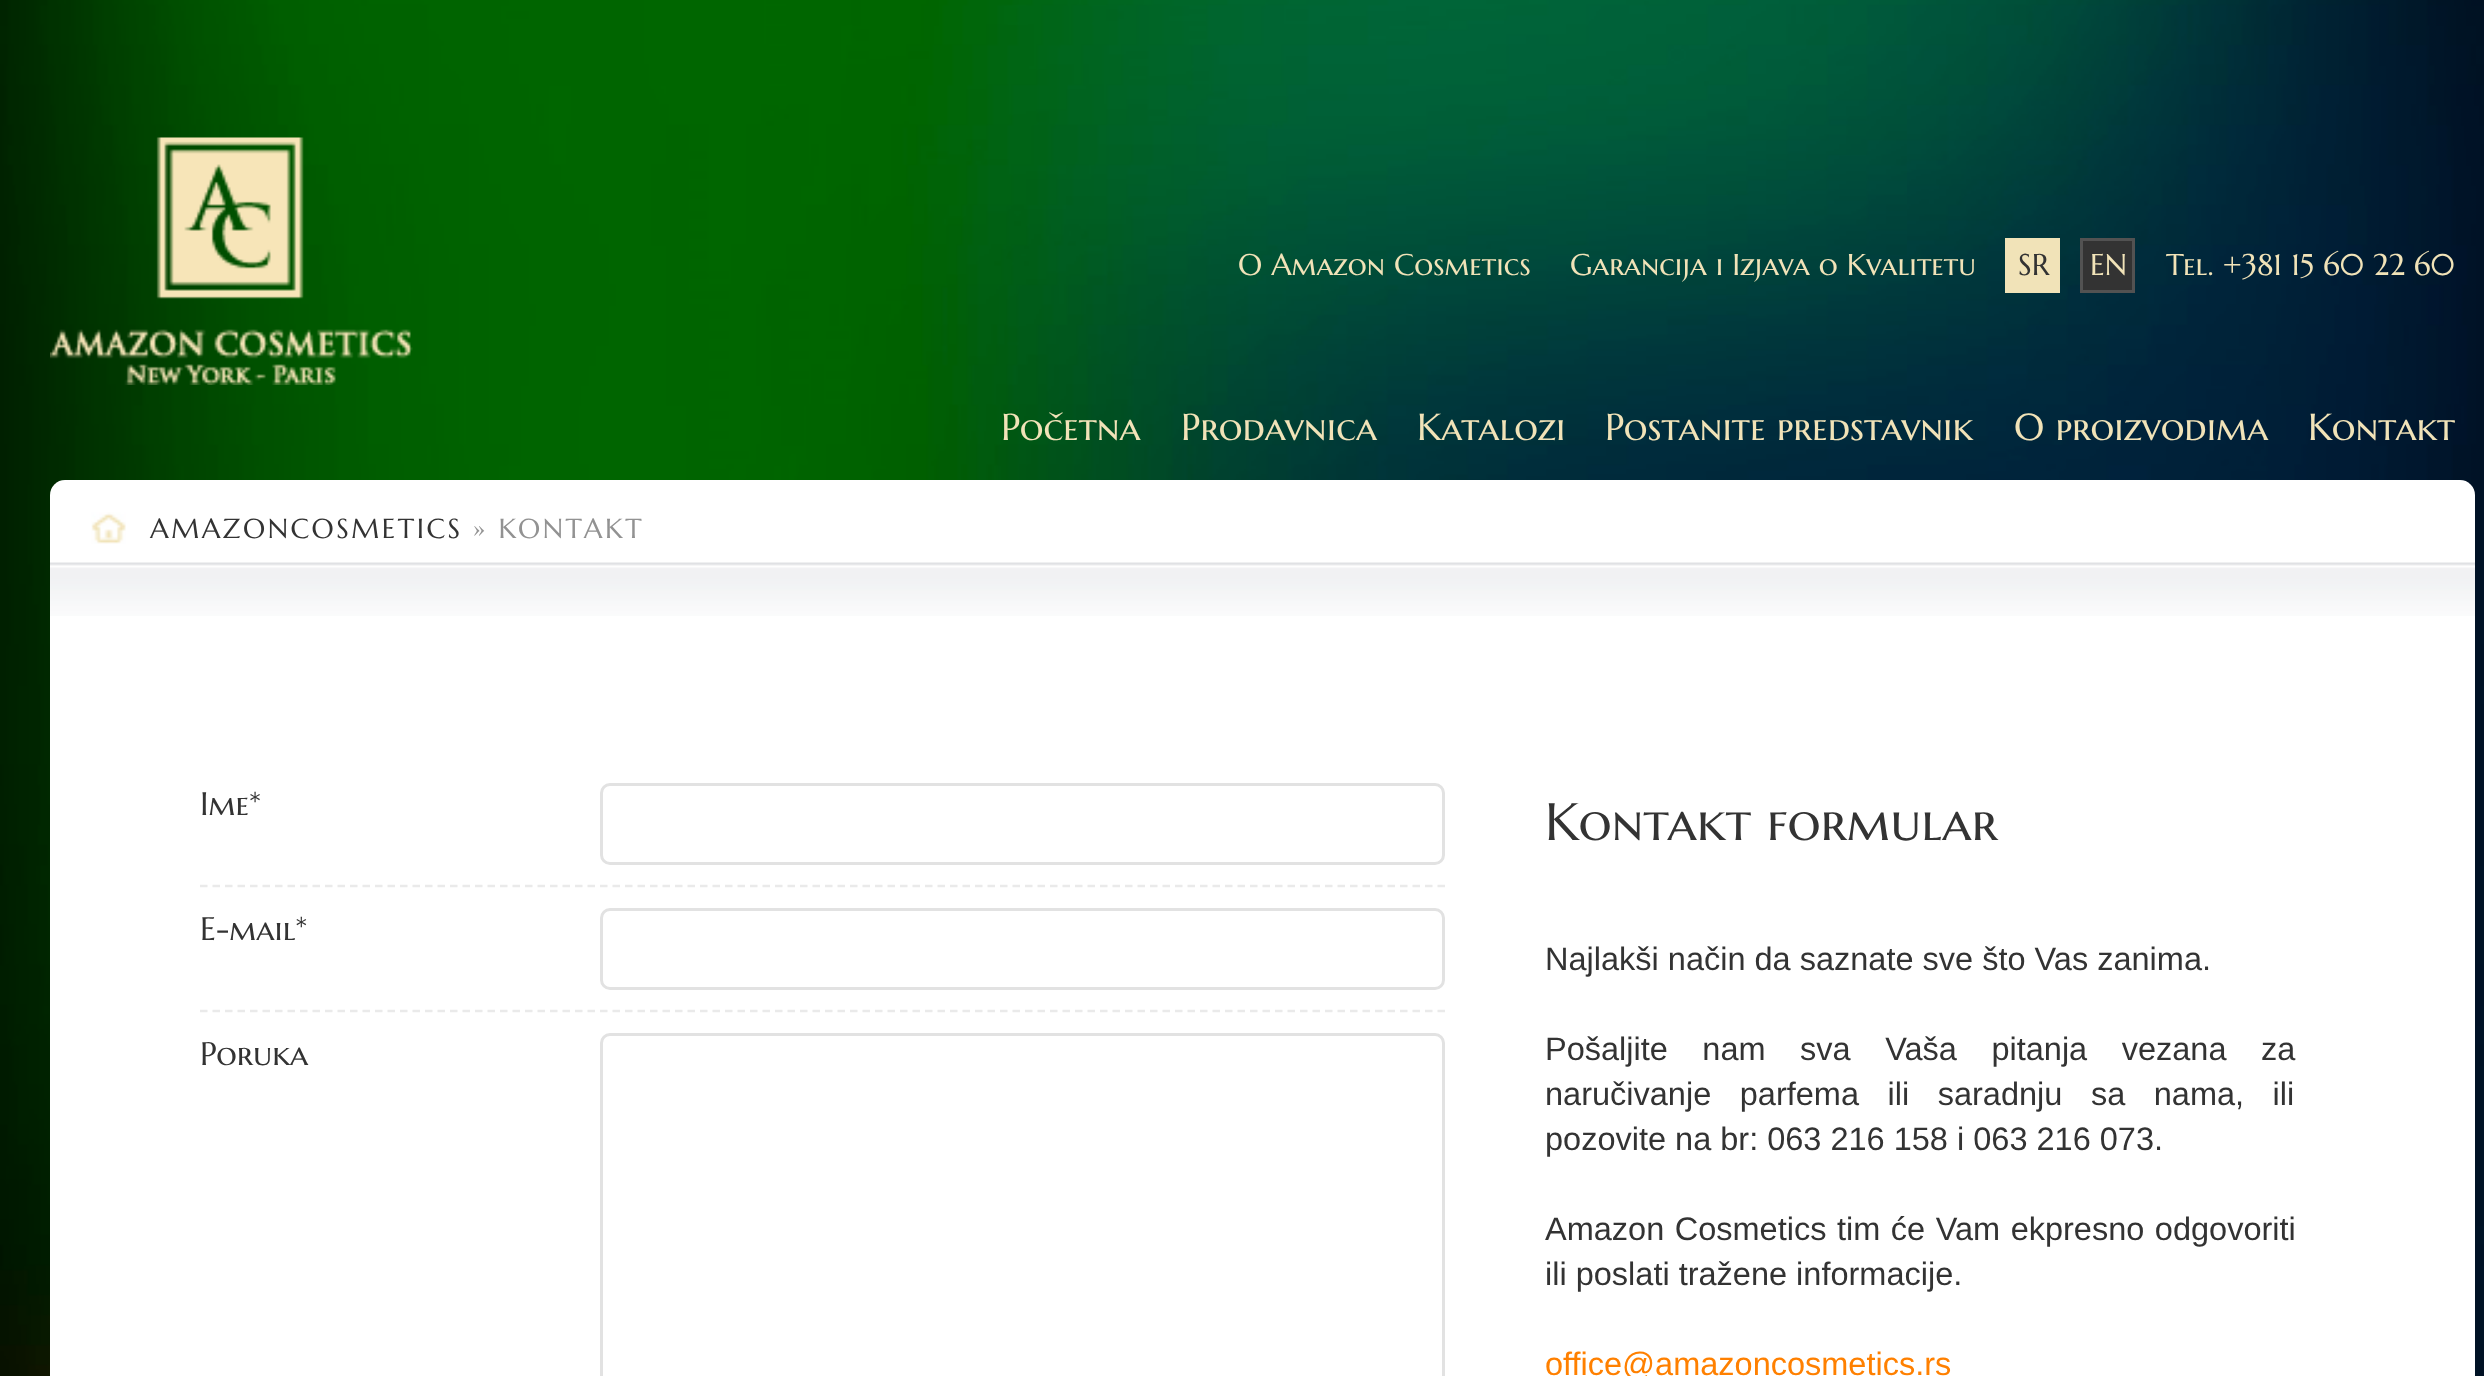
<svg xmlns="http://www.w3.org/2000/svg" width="2484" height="1376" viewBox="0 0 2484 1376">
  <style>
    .t1 { font: 30px Marcellus SC; fill: #f1e3b8; }
    .t2 { font: 30px Marcellus SC; fill: #333; }
    .t3 { font: 37.5px Marcellus SC; fill: #f1e3b8; }
    .t4 { font: 27.5px Marcellus SC; letter-spacing: 2.5px; fill: #333; }
    .t5 { font: 27.5px Marcellus SC; letter-spacing: 2.5px; fill: #929292; }
    .t6 { font: 32.5px Marcellus SC; fill: #333; }
    .t7 { font: 52.5px Marcellus SC; fill: #333; }
    .t8 { font: 32.5px Liberation Sans; fill: #333; }
    .t9 { font: 32.5px Liberation Sans; fill: #ff8000; }
  </style>
  <rect width="100%" height="100%" fill="#fff"/>
  <image x="0" y="0" width="2484" height="1376" href="images/1.png"/>
  <image x="50" y="137" width="363" height="248" href="images/2.png"/>
  <text x="1238" y="275" class="t1">O Amazon Cosmetics</text>
  <text x="1570" y="275" class="t1">Garancija i Izjava o Kvalitetu</text>
  <rect x="2005" y="238" width="55" height="55" fill="#f1e3b8"/>
  <text x="2018" y="275" class="t2">SR</text>
  <rect x="2081.5" y="239.5" width="52" height="52" fill="#333" stroke="#525252" stroke-width="3"/>
  <text x="2090" y="275" class="t1">EN</text>
  <text x="2166" y="275" class="t1">Tel. +381 15 60 22 60</text>
  <text x="1001" y="440" class="t3">Početna</text>
  <text x="1181" y="440" class="t3">Prodavnica</text>
  <text x="1417" y="440" class="t3">Katalozi</text>
  <text x="1605" y="440" class="t3">Postanite predstavnik</text>
  <text x="2014" y="440" class="t3">O proizvodima</text>
  <text x="2308" y="440" class="t3">Kontakt</text>
  <rect x="50" y="480" width="2425" height="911" rx="15" fill="#fff"/>
  <image x="91" y="512" width="35" height="32" href="images/3.png"/>
  <text x="150" y="538" class="t4">AMAZONCOSMETICS</text>
  <text x="473" y="538" class="t5">» KONTAKT</text>
  <image x="50" y="562" width="2425" height="54" href="images/4.png"/>
  <path d="M200 886H1445" fill="none" stroke="#eaeaea" stroke-width="2.5" stroke-dasharray="7.5 5"/>
  <text x="200" y="815" class="t6">Ime*</text>
  <rect x="601.5" y="784.5" width="842" height="79" rx="8.5" fill="none" stroke="#e2e2e2" stroke-width="3"/>
  <path d="M200 1011H1445" fill="none" stroke="#eaeaea" stroke-width="2.5" stroke-dasharray="7.5 5"/>
  <text x="200" y="940" class="t6">E-mail*</text>
  <rect x="601.5" y="909.5" width="842" height="79" rx="8.5" fill="none" stroke="#e2e2e2" stroke-width="3"/>
  <text x="200" y="1065" class="t6">Poruka</text>
  <rect x="601.5" y="1034.5" width="842" height="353" rx="8.5" fill="none" stroke="#e2e2e2" stroke-width="3"/>
  <text x="1545" y="840" class="t7">Kontakt formular</text>
  <text x="1545" y="970" class="t8">Najlakši način da saznate sve što Vas zanima.</text>
  <text x="1545" y="1060" word-spacing="25.5" class="t8">Pošaljite nam sva Vaša pitanja vezana za</text>
  <text x="1545" y="1105" word-spacing="19.5" class="t8">naručivanje parfema ili saradnju sa nama, ili</text>
  <text x="1545" y="1150" class="t8">pozovite na br: 063 216 158 i 063 216 073.</text>
  <text x="1545" y="1240" word-spacing="1.5" class="t8">Amazon Cosmetics tim će Vam ekpresno odgovoriti</text>
  <text x="1545" y="1285" class="t8">ili poslati tražene informacije.</text>
  <text x="1545" y="1375" class="t9">office@amazoncosmetics.rs</text>
</svg>
